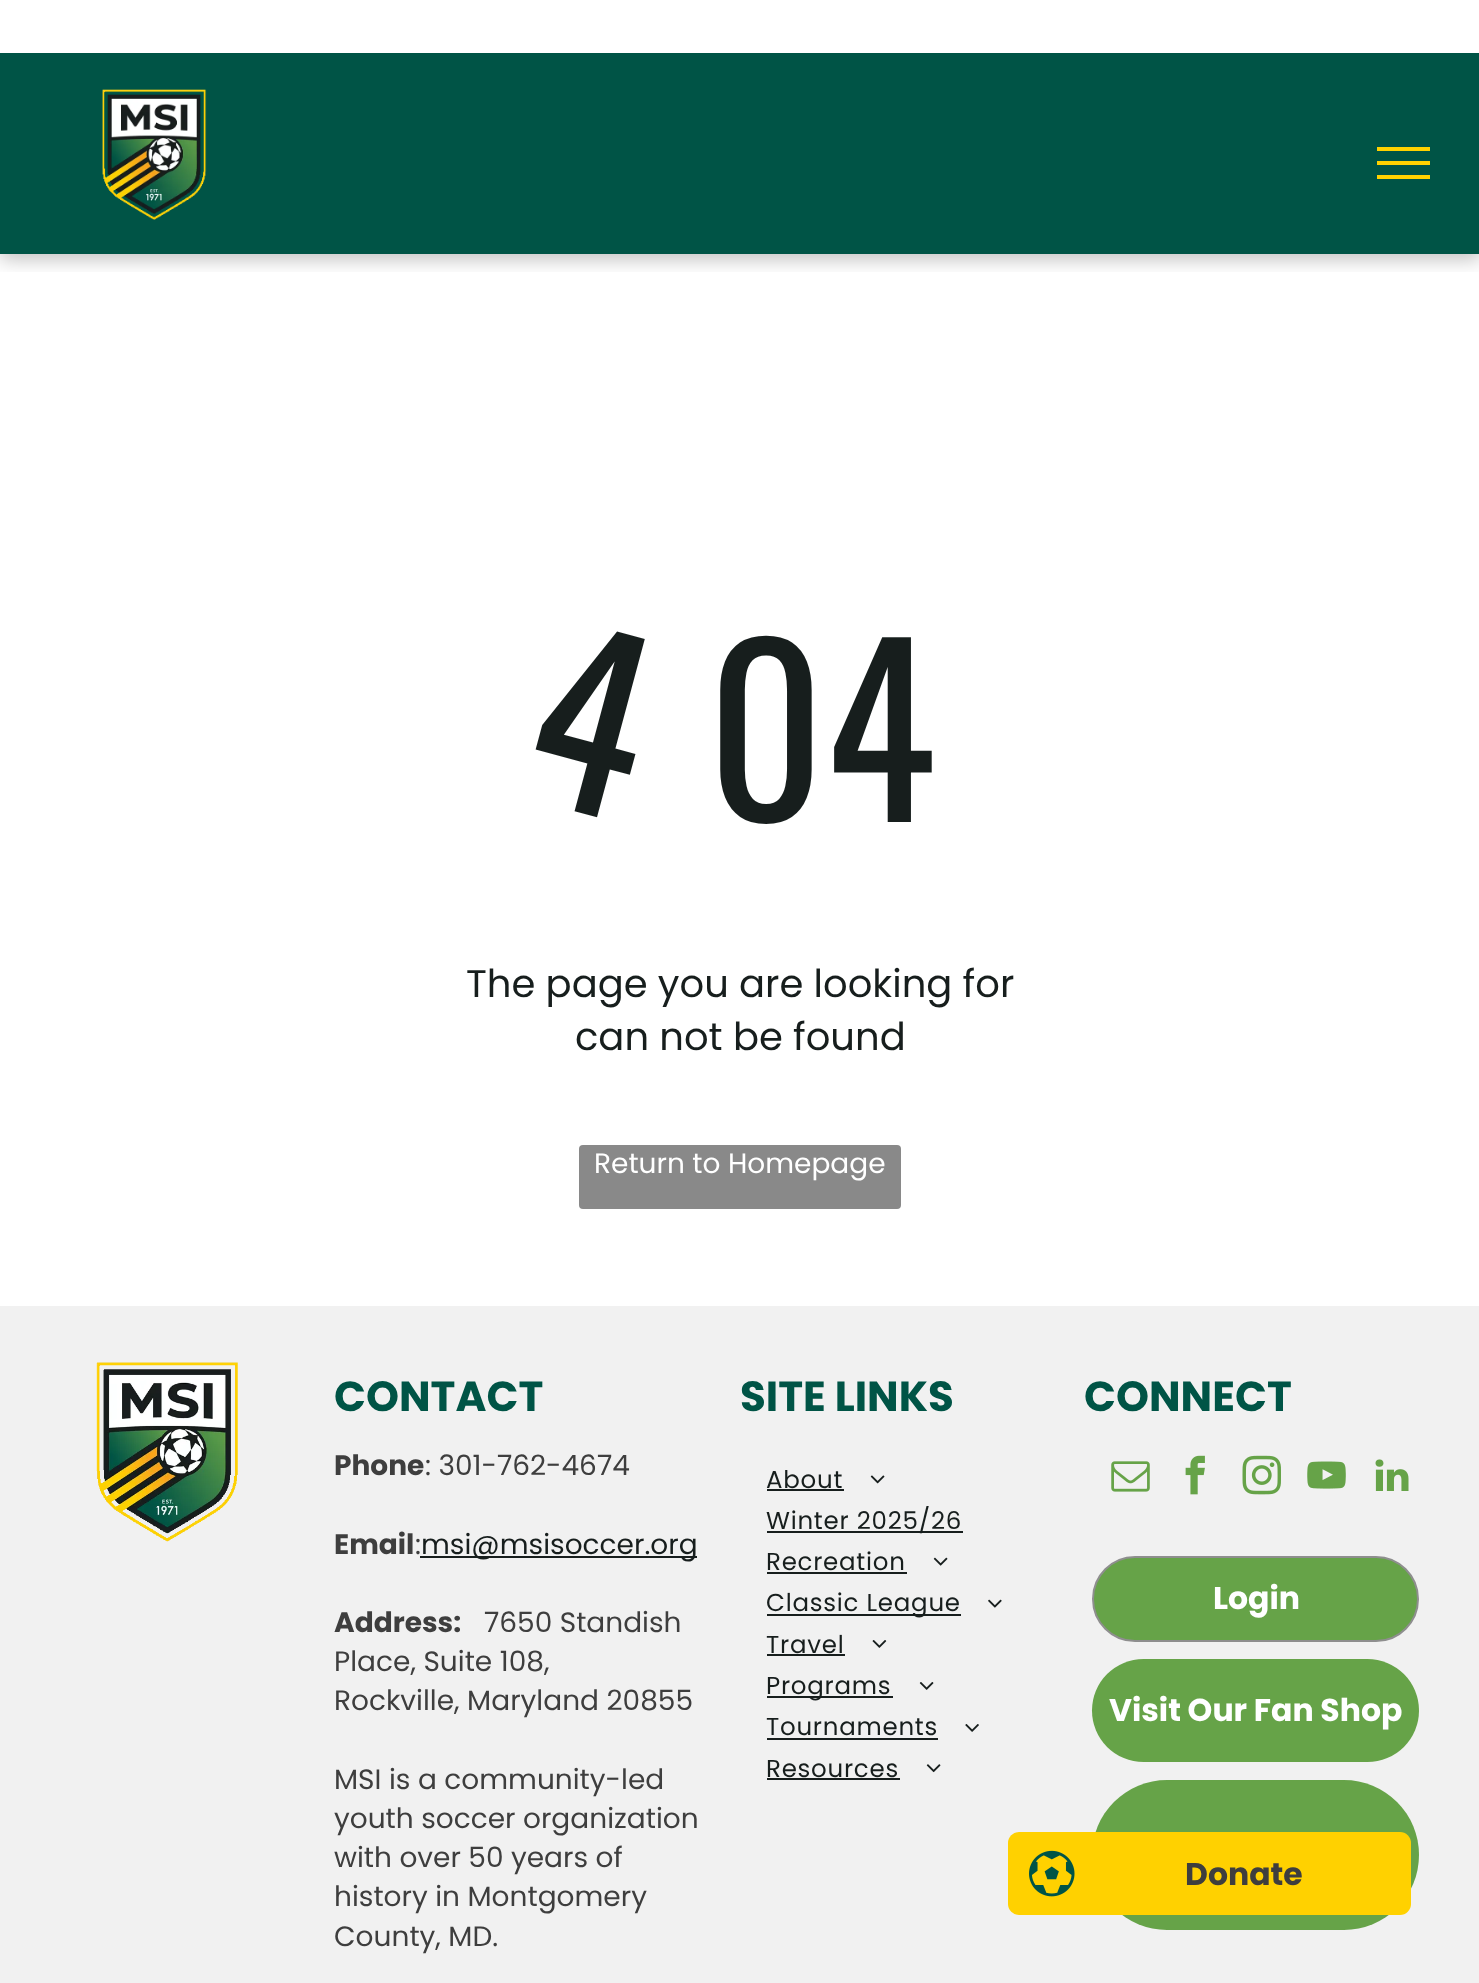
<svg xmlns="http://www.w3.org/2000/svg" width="1479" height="1983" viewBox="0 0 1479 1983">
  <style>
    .t1 { font: 228px Oswald; fill: #171e1d; }
    .t2 { font: 38.5px Poppins; fill: #171e1d; }
    .t3 { font: 28px Poppins; fill: #fff; }
    .t4 { font: bold 42px Poppins; fill: #005446; }
    .t5 { font: bold 28px Poppins; fill: #3e3e3e; }
    .t6 { font: 28px Poppins; fill: #3e3e3e; }
    .t7 { font: 28px Poppins; fill: #171e1d; }
    .t8 { font: 24.5px Poppins; letter-spacing: 0.75px; fill: #171e1d; }
    .t9 { font: bold 31.5px Poppins; fill: #fff; }
    .t10 { font: bold 31.5px Poppins; fill: #3e3e3e; }
  </style>
  <defs>
    <clipPath id="clip1"><rect x="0" y="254" width="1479" height="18"/></clipPath>
  </defs>
  <rect width="100%" height="100%" fill="#fff"/>
  <g clip-path="url(#clip1)">
    <rect x="0" y="5" width="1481" height="254" fill="#00000040" filter="blur(9.5px)"/>
  </g>
  <rect x="0" y="53" width="1479" height="201" fill="#005446"/>
  <image x="102" y="89" width="105" height="131" href="images/1.png"/>
  <rect x="1377" y="147" width="53" height="4" fill="#ffd100"/>
  <rect x="1377" y="161" width="53" height="4" fill="#ffd100"/>
  <rect x="1377" y="175" width="53" height="4" fill="#ffd100"/>
  <text x="514" y="795" transform="rotate(15 514 795)" class="t1">4</text>
  <text x="707" y="822" class="t1">04</text>
  <text x="466" y="997" class="t2">The page you are looking for</text>
  <text x="575" y="1050" class="t2">can not be found</text>
  <rect x="579" y="1145" width="322" height="64" rx="4" fill="#898989"/>
  <text x="594" y="1173" class="t3">Return to Homepage</text>
  <rect x="0" y="1306" width="1479" height="677" fill="#f1f1f1"/>
  <image x="96" y="1362" width="142" height="180" href="images/2.png"/>
  <text x="334" y="1411" class="t4">CONTACT</text>
  <text x="334" y="1475" class="t5">Phone</text>
  <text x="425" y="1475" class="t6">: 301-762-4674</text>
  <text x="334" y="1554" class="t5">Email</text>
  <text x="415" y="1554" class="t6">:</text>
  <rect x="420" y="1556" width="277" height="2" fill="#171e1d"/>
  <text x="421" y="1554" class="t7">msi@msisoccer.org</text>
  <text x="334" y="1632" class="t5">Address:</text>
  <text x="484" y="1632" class="t6">7650 Standish</text>
  <text x="334" y="1671" class="t6">Place, Suite 108,</text>
  <text x="334" y="1710" class="t6">Rockville, Maryland 20855</text>
  <text x="334" y="1789" class="t6">MSI is a community-led</text>
  <text x="334" y="1828" class="t6">youth soccer organization</text>
  <text x="334" y="1867" class="t6">with over 50 years of</text>
  <text x="334" y="1906" class="t6">history in Montgomery</text>
  <text x="334" y="1946" class="t6">County, MD.</text>
  <text x="740" y="1411" class="t4">SITE LINKS</text>
  <text x="766" y="1488" class="t8">About</text>
  <rect x="767" y="1489" width="77" height="2" fill="#171e1d"/>
  <image x="870" y="1475" width="15" height="9" href="images/3.png"/>
  <rect x="767" y="1531" width="196" height="2" fill="#171e1d"/>
  <text x="766" y="1529" class="t8">Winter 2025/26</text>
  <text x="766" y="1570" class="t8">Recreation</text>
  <rect x="767" y="1572" width="140" height="2" fill="#171e1d"/>
  <image x="933" y="1557" width="15" height="9" href="images/4.png"/>
  <rect x="767" y="1614" width="194" height="2" fill="#171e1d"/>
  <text x="766" y="1611" class="t8">Classic League</text>
  <image x="988" y="1599" width="14" height="9" href="images/5.png"/>
  <text x="766" y="1653" class="t8">Travel</text>
  <rect x="767" y="1654" width="78" height="2" fill="#171e1d"/>
  <image x="872" y="1640" width="15" height="8" href="images/6.png"/>
  <rect x="767" y="1696" width="126" height="2" fill="#171e1d"/>
  <text x="766" y="1694" class="t8">Programs</text>
  <image x="919" y="1682" width="15" height="8" href="images/7.png"/>
  <text x="766" y="1735" class="t8">Tournaments</text>
  <rect x="767" y="1738" width="171" height="2" fill="#171e1d"/>
  <image x="965" y="1724" width="14" height="8" href="images/8.png"/>
  <text x="766" y="1777" class="t8">Resources</text>
  <rect x="767" y="1778" width="133" height="2" fill="#171e1d"/>
  <image x="926" y="1764" width="15" height="9" href="images/9.png"/>
  <text x="1084" y="1411" class="t4">CONNECT</text>
  <image x="1111" y="1461" width="39" height="31" href="images/10.png"/>
  <image x="1185" y="1455" width="20" height="40" href="images/11.png"/>
  <image x="1242" y="1455" width="39" height="40" href="images/12.png"/>
  <image x="1307" y="1461" width="39" height="28" href="images/13.png"/>
  <image x="1375" y="1459" width="34" height="32" href="images/14.png"/>
  <rect x="1093" y="1557" width="325" height="84" rx="42" fill="#66a348" stroke="#8e8e8e" stroke-width="2"/>
  <text x="1213" y="1609" class="t9">Login</text>
  <rect x="1092" y="1659" width="327" height="103" rx="51.5" fill="#66a348"/>
  <text x="1109" y="1721" class="t9">Visit Our Fan Shop</text>
  <rect x="1092" y="1780" width="327" height="150" rx="75" fill="#66a348"/>
  <rect x="1008" y="1832" width="403" height="83" rx="11" fill="#ffd100"/>
  <image x="1029" y="1850" width="46" height="47" href="images/15.png"/>
  <text x="1185" y="1885" class="t10">Donate</text>
</svg>
